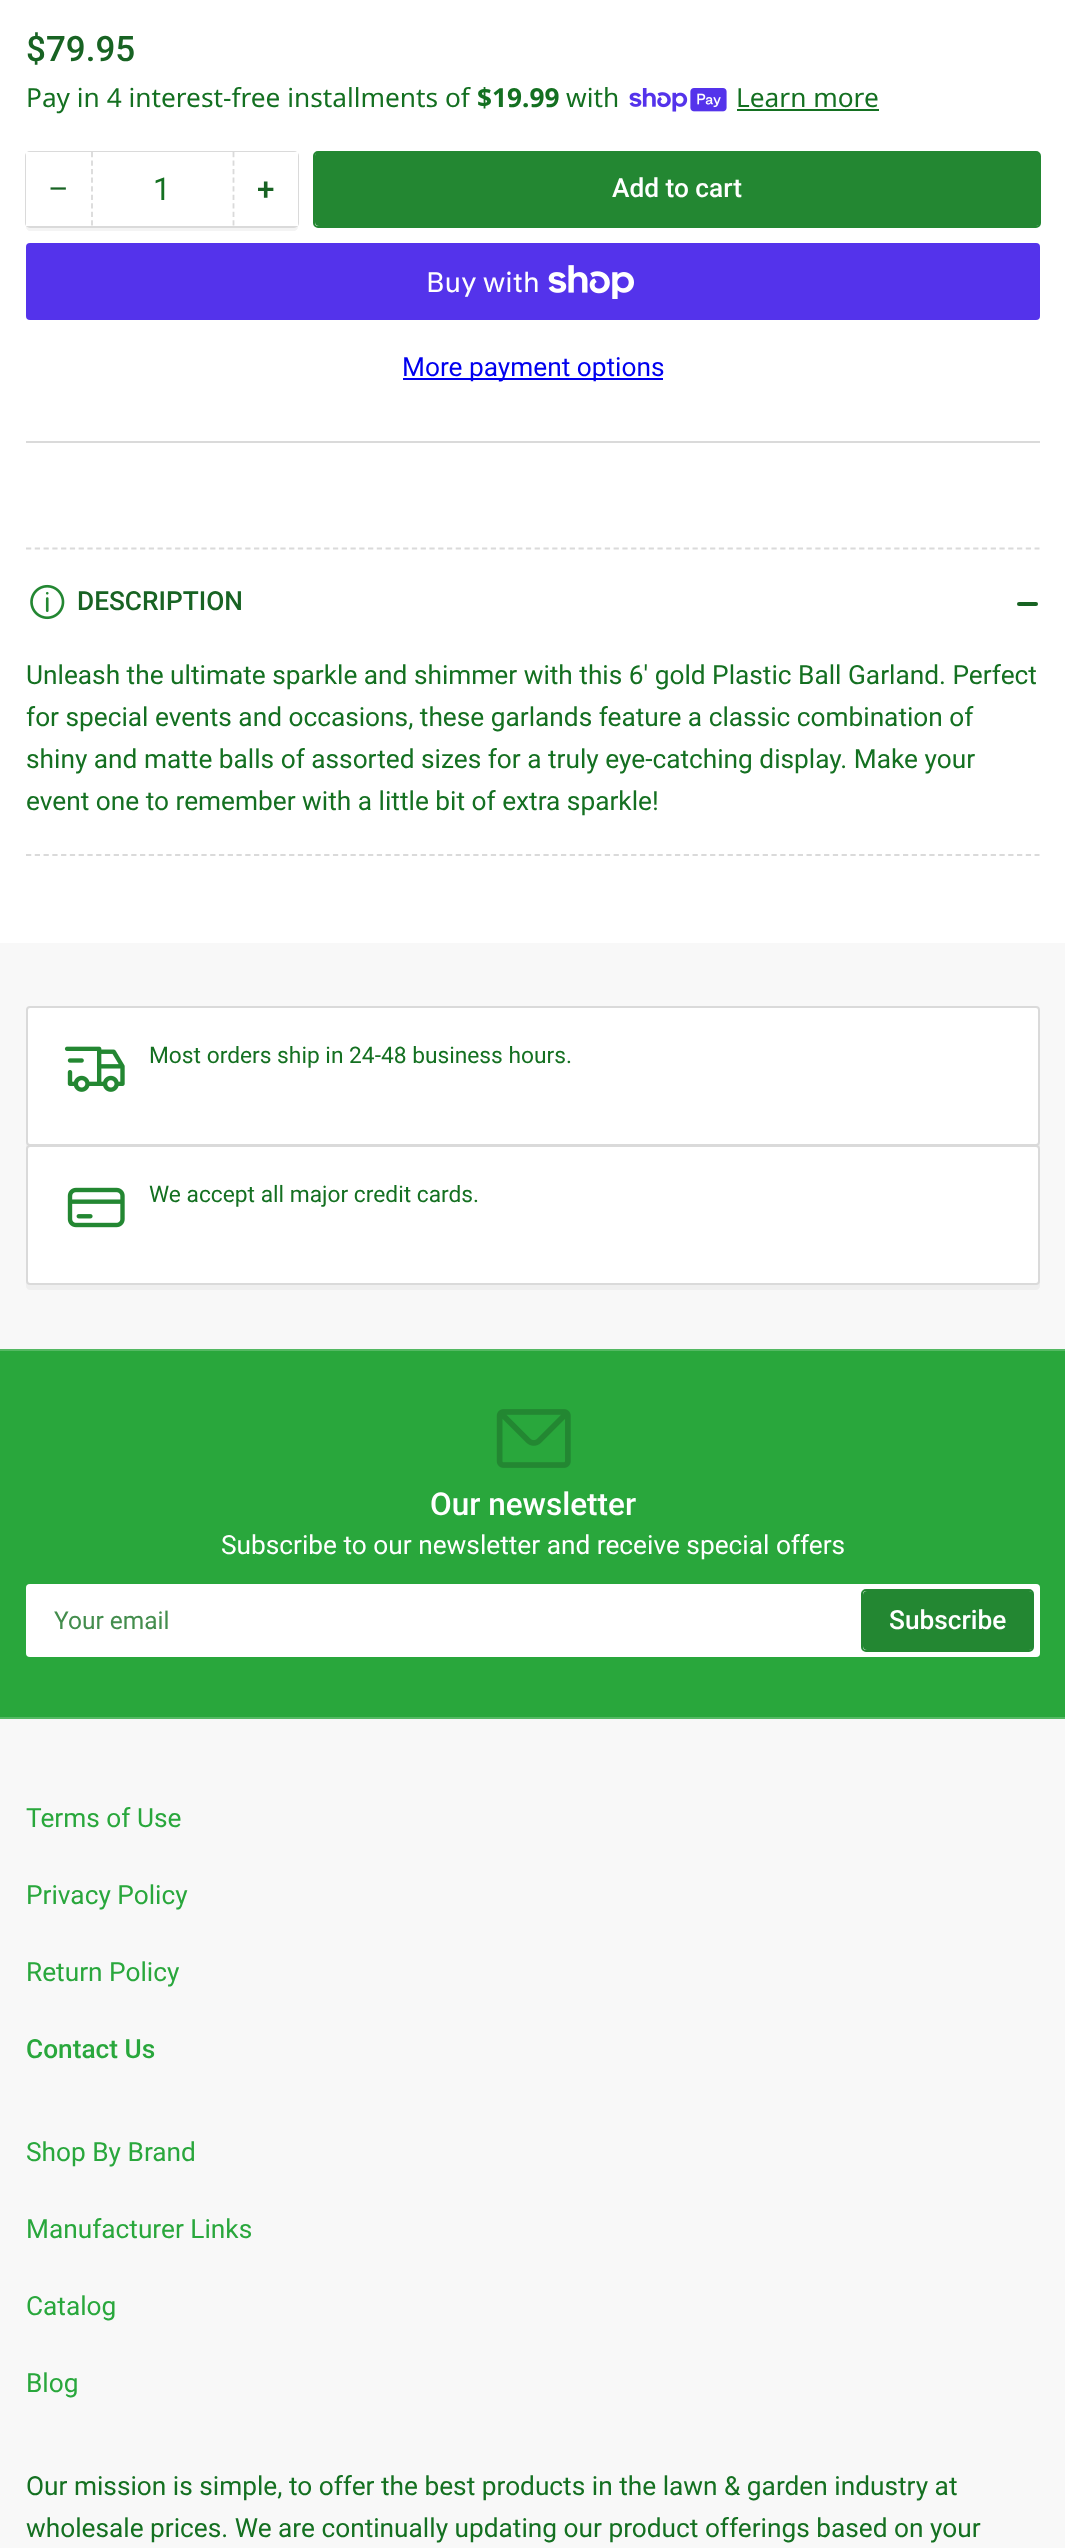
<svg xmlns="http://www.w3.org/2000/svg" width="1065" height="2548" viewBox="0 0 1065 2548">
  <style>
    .t1 { font: 500 35px Roboto; fill: #186323; }
    .t2 { font: 26.25px Noto Sans; fill: #147021; }
    .t3 { font: bold 26.25px Noto Sans; fill: #147021; }
    .t4 { font: 31.5px Liberation Sans; fill: #186323; }
    .t5 { font: 31.5px Roboto; fill: #147021; }
    .t6 { font: 500 31.5px Roboto; fill: #186323; }
    .t7 { font: 500 26.25px Roboto; fill: #fff; }
    .t8 { font: 28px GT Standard; fill: #fff; }
    .t9 { font: 26.25px Roboto; fill: #00e; }
    .t10 { font: 500 26.25px Roboto; fill: #186323; }
    .t11 { font: 26.25px Roboto; fill: #147021; }
    .t12 { font: 22.75px Roboto; fill: #147021; }
    .t13 { font: 500 31.5px Roboto; fill: #fff; }
    .t14 { font: 26.25px Roboto; fill: #fff; }
    .t15 { font: 24.5px Roboto; fill: #438d4d; }
    .t16 { font: 26.25px Roboto; fill: #29a73c; }
    .t17 { font: 500 26.25px Roboto; fill: #29a73c; }
  </style>
  <rect width="100%" height="100%" fill="#fff"/>
  <text x="26" y="61" class="t1">$79.95</text>
  <text x="26" y="107" class="t2">Pay in 4 interest-free installments of</text>
  <text x="477" y="107" class="t3">$19.99</text>
  <text x="566" y="107" class="t2">with</text>
  <image x="629" y="88" width="98" height="24" href="images/1.png"/>
  <text x="736" y="107" class="t2">Learn more</text>
  <rect x="737" y="109" width="142" height="2" fill="#147021"/>
  <path d="M26 161V227C26 229 28 231 30 231H294C296 231 298 229 298 227V162V160V222C298 224 296 226 294 226H30C28 226 26 224 26 222Z" fill="#f4f4f4"/>
  <rect x="26" y="152" width="272" height="75" rx="4" fill="none" stroke="#dadada" stroke-width="2"/>
  <rect x="91" y="152" width="144" height="1" fill="#fff"/>
  <rect x="26" y="152" width="65" height="74" fill="#fff"/>
  <text x="49" y="199" class="t4">−</text>
  <path d="M233.5 152V226" fill="none" stroke="#dadada" stroke-width="1.8" stroke-dasharray="5.25 3.29"/>
  <path d="M92 152V226" fill="none" stroke="#dadada" stroke-width="1.8" stroke-dasharray="5.25 3.29"/>
  <text x="153" y="200" class="t5">1</text>
  <rect x="235" y="152" width="63" height="74" fill="#fff"/>
  <text x="257" y="200" class="t6">+</text>
  <rect x="314" y="152" width="726" height="75" rx="4" fill="none" stroke="#238732" stroke-width="2"/>
  <rect x="315" y="152" width="725" height="74" rx="4" fill="#238732"/>
  <text x="612" y="197" class="t7">Add to cart</text>
  <rect x="26" y="243" width="1014" height="77" rx="4" fill="#5433eb"/>
  <text x="426" y="292" class="t8">Buy with</text>
  <image x="548" y="265" width="86" height="34" href="images/2.png"/>
  <rect x="403" y="378" width="260" height="2" fill="#00e"/>
  <text x="402" y="376" class="t9">More payment options</text>
  <rect x="26" y="441" width="1014" height="2" fill="#dadada"/>
  <path d="M26 548.5H1039.5" fill="none" stroke="#dadada" stroke-width="1.8" stroke-dasharray="5.25 3.52"/>
  <path d="M26 855H1039.5" fill="none" stroke="#dadada" stroke-width="1.8" stroke-dasharray="5.25 3.52"/>
  <image x="30" y="584" width="35" height="36" href="images/3.png"/>
  <text x="77" y="610" class="t10">DESCRIPTION</text>
  <rect x="1017" y="602" width="12" height="4" rx="2" fill="#186323"/>
  <rect x="1024" y="602" width="14" height="4" rx="2" fill="#186323"/>
  <text x="26" y="684" class="t11">Unleash the ultimate sparkle and shimmer with this 6' gold Plastic Ball Garland. Perfect</text>
  <text x="26" y="726" class="t11">for special events and occasions, these garlands feature a classic combination of</text>
  <text x="26" y="768" class="t11">shiny and matte balls of assorted sizes for a truly eye-catching display. Make your</text>
  <text x="26" y="810" class="t11">event one to remember with a little bit of extra sparkle!</text>
  <rect x="0" y="943" width="1065" height="406" fill="#f8f8f8"/>
  <path d="M26 1015V1148C26 1150 28 1152 30 1152H1036C1038 1152 1040 1150 1040 1148V1016V1014V1143C1040 1145 1038 1146 1036 1146H30C28 1146 26 1145 26 1143Z" fill="#efefef"/>
  <rect x="27" y="1007" width="1012" height="138" rx="3" fill="#fff" stroke="#dadada" stroke-width="2"/>
  <image x="64" y="1046" width="61" height="46" href="images/4.png"/>
  <text x="149" y="1063" class="t12">Most orders ship in 24-48 business hours.</text>
  <path d="M26 1153V1286C26 1288 28 1290 30 1290H1036C1038 1290 1040 1288 1040 1286V1154V1152V1281C1040 1283 1038 1284 1036 1284H30C28 1284 26 1283 26 1281Z" fill="#efefef"/>
  <rect x="27" y="1146" width="1012" height="138" rx="3" fill="#fff" stroke="#dadada" stroke-width="2"/>
  <image x="67" y="1187" width="58" height="41" href="images/5.png"/>
  <text x="149" y="1202" class="t12">We accept all major credit cards.</text>
  <rect x="0" y="1351" width="1065" height="366" fill="#29a73c"/>
  <rect x="0" y="1349" width="1065" height="2" fill="#54b963"/>
  <rect x="0" y="1717" width="1065" height="2" fill="#54b963"/>
  <image x="496" y="1409" width="75" height="59" href="images/6.png"/>
  <text x="430" y="1515" class="t13">Our newsletter</text>
  <text x="221" y="1554" class="t14">Subscribe to our newsletter and receive special offers</text>
  <rect x="26" y="1584" width="1014" height="73" rx="4" fill="#fff"/>
  <rect x="27" y="1585" width="1012" height="71" rx="3" fill="none" stroke="#ffffff33" stroke-width="2"/>
  <text x="54" y="1629" class="t15">Your email</text>
  <rect x="862" y="1590" width="171" height="61" rx="4" fill="none" stroke="#238732" stroke-width="2"/>
  <rect x="863" y="1591" width="170" height="59" rx="4" fill="#238732"/>
  <text x="889" y="1629" class="t7">Subscribe</text>
  <rect x="0" y="1719" width="1065" height="829" fill="#f8f8f8"/>
  <text x="26" y="1827" class="t16">Terms of Use</text>
  <text x="26" y="1904" class="t16">Privacy Policy</text>
  <text x="26" y="1981" class="t16">Return Policy</text>
  <text x="26" y="2058" class="t17">Contact Us</text>
  <text x="26" y="2161" class="t16">Shop By Brand</text>
  <text x="26" y="2238" class="t16">Manufacturer Links</text>
  <text x="26" y="2315" class="t16">Catalog</text>
  <text x="26" y="2392" class="t16">Blog</text>
  <text x="26" y="2495" class="t11">Our mission is simple, to offer the best products in the lawn &amp; garden industry at</text>
  <text x="26" y="2537" class="t11">wholesale prices. We are continually updating our product offerings based on your</text>
</svg>
